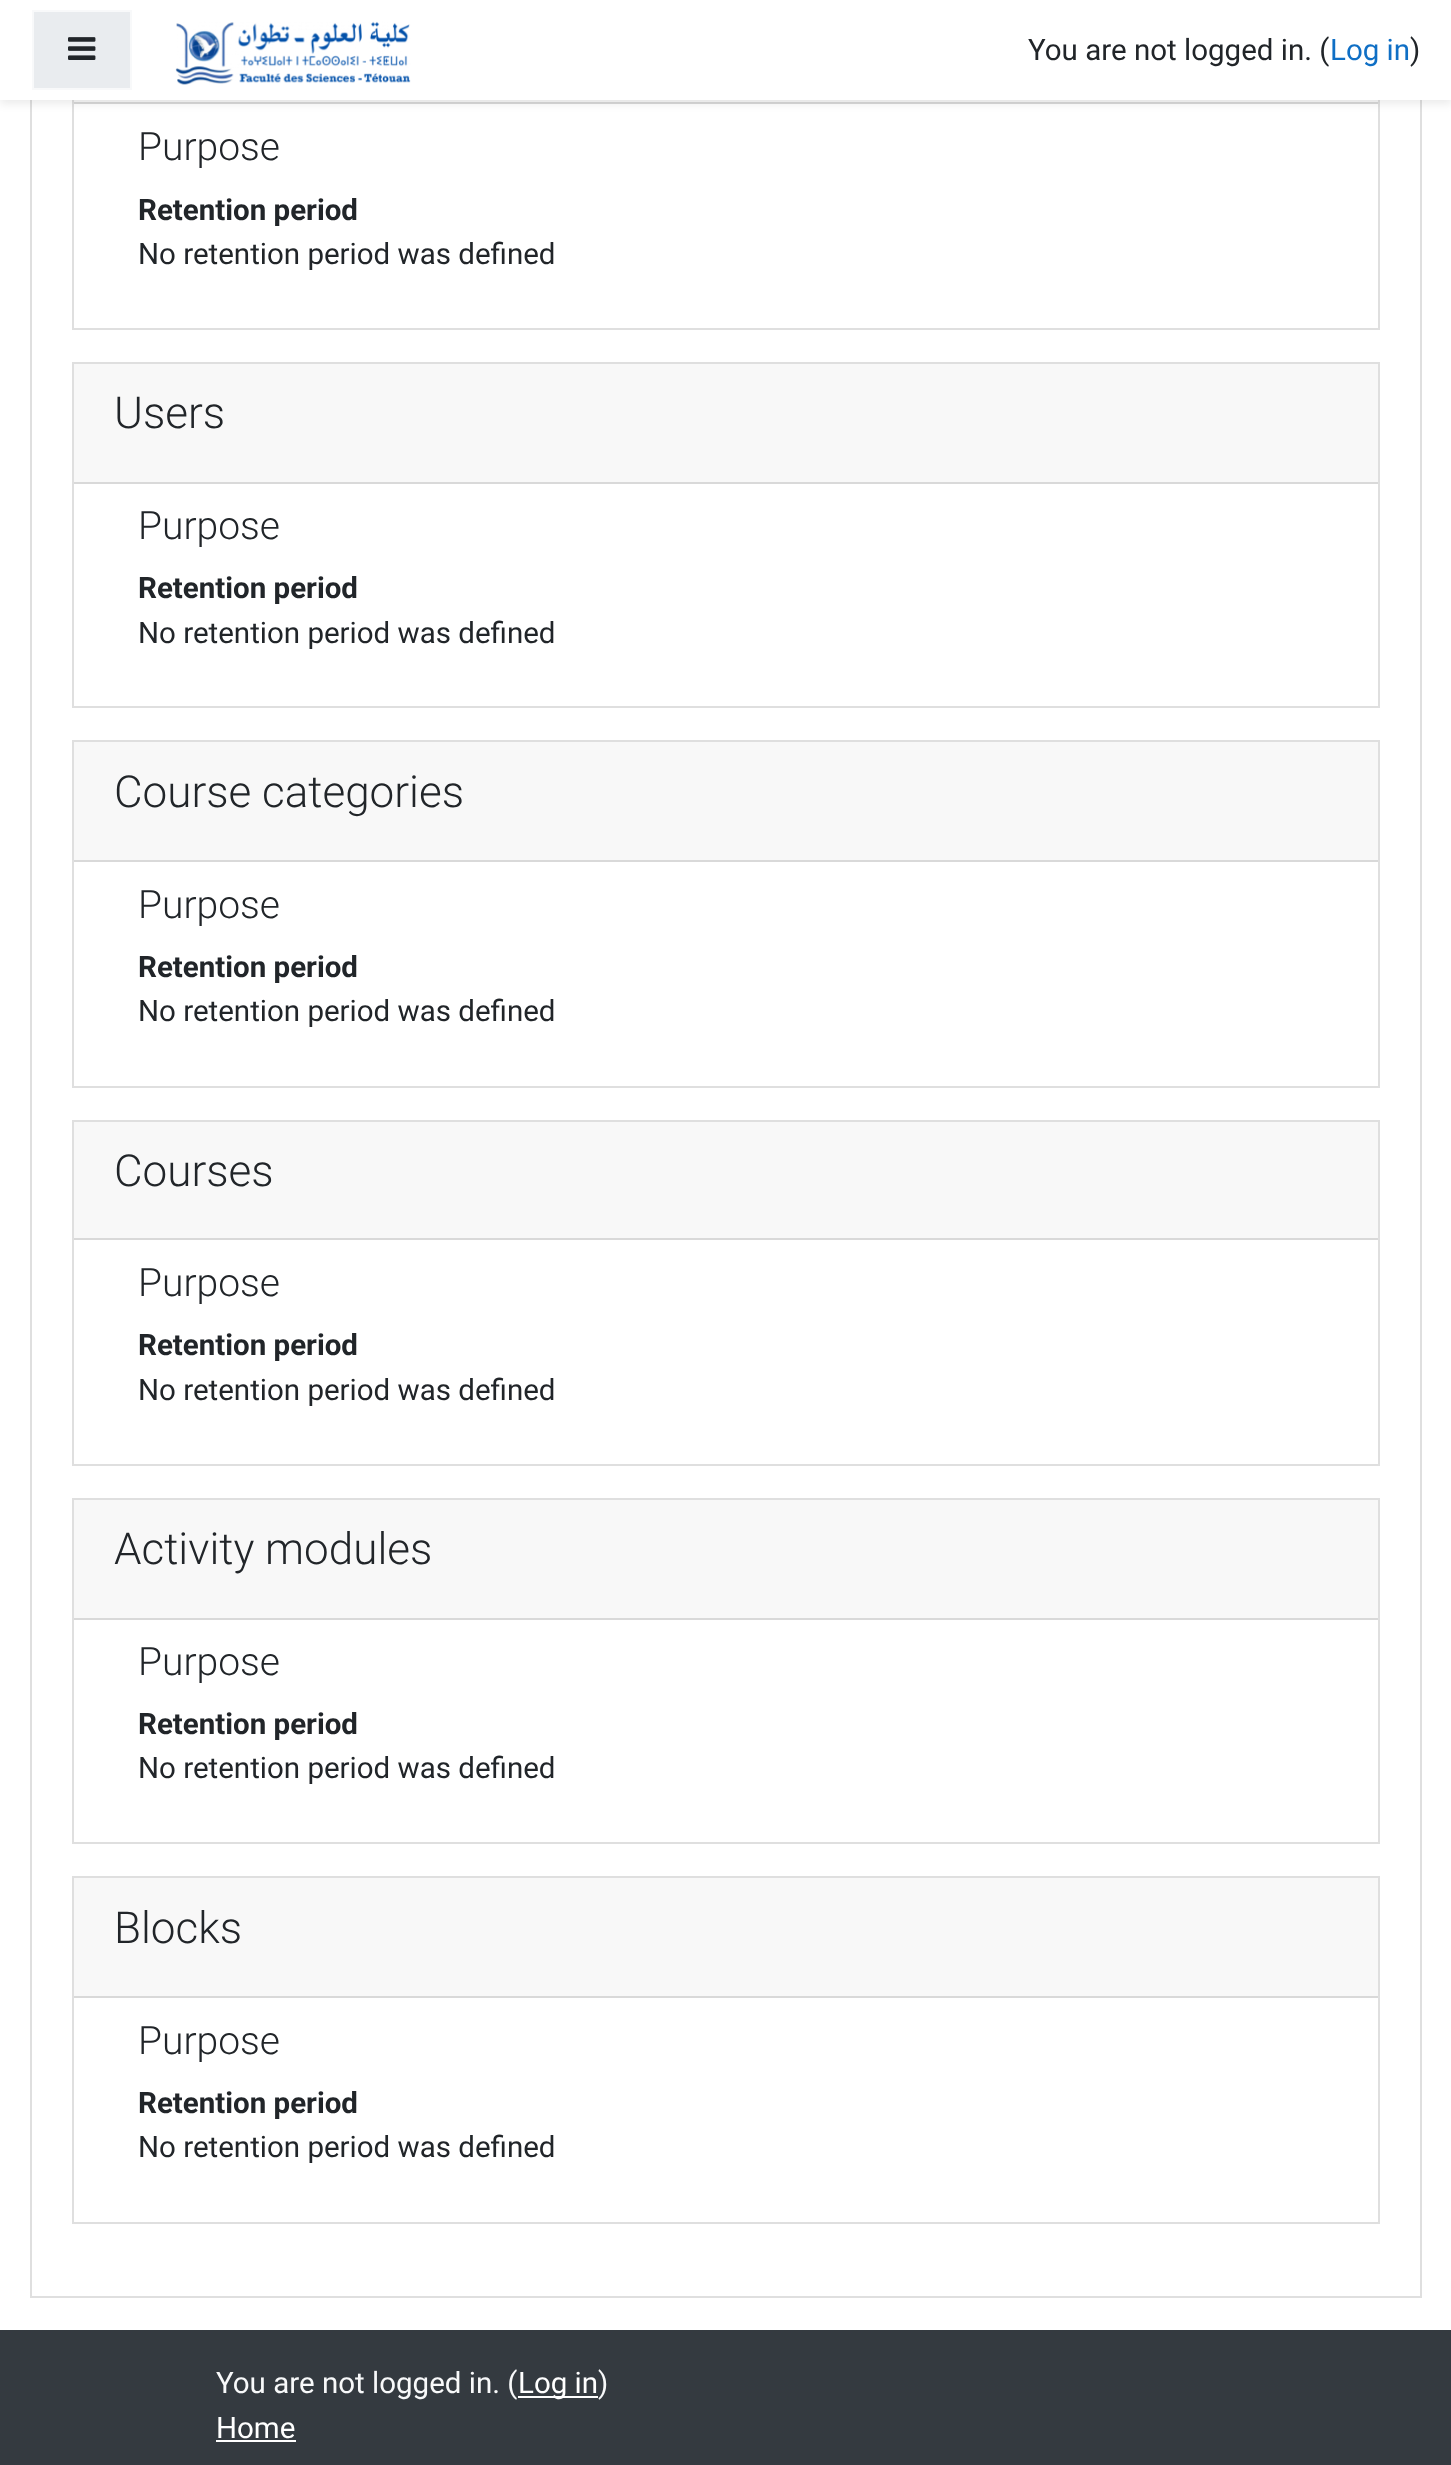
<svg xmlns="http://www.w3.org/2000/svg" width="1451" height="2465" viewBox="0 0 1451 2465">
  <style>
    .t1 { font: 29.5px Roboto; fill: #212529; }
    .t2 { font: 29.5px Roboto; fill: #0f6fc5; }
    .t3 { font: 300 39px Roboto; fill: #212529; }
    .t4 { font: bold 29.5px Roboto; fill: #212529; }
    .t5 { font: 300 44px Roboto; fill: #212529; }
    .t6 { font: 29.5px Roboto; fill: #f8f9fa; }
    .t7 { font: 29.5px Roboto; fill: #fff; }
  </style>
  <rect width="100%" height="100%" fill="#fff"/>
  <rect x="31" y="-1" width="1390" height="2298" fill="none" stroke="#dfdfdf" stroke-width="2"/>
  <rect x="73" y="-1" width="1306" height="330" fill="none" stroke="#dfdfdf" stroke-width="2"/>
  <rect x="74" y="100" width="1304" height="2" fill="#f8f8f8"/>
  <rect x="74" y="102" width="1304" height="2" fill="#d9d9d9"/>
  <rect x="0" y="4" width="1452" height="100" fill="#00000014" filter="blur(4px)"/>
  <rect x="0" y="0" width="1451" height="100" fill="#fff"/>
  <rect x="33" y="11" width="98" height="78" fill="#e9ecef" stroke="#f8f9fa" stroke-width="2"/>
  <image x="68" y="37" width="28" height="23" href="images/1.png"/>
  <image x="175" y="21" width="236" height="64" href="images/2.png"/>
  <text x="1028" y="60" class="t1">You are not logged in. (</text>
  <text x="1330" y="60" class="t2">Log in</text>
  <text x="1410" y="60" class="t1">)</text>
  <text x="138" y="160" class="t3">Purpose</text>
  <text x="138" y="220" class="t4">Retention period</text>
  <text x="138" y="264" class="t1">No retention period was defined</text>
  <rect x="73" y="363" width="1306" height="344" fill="none" stroke="#dfdfdf" stroke-width="2"/>
  <rect x="74" y="364" width="1304" height="118" fill="#f8f8f8"/>
  <rect x="74" y="482" width="1304" height="2" fill="#d9d9d9"/>
  <text x="114" y="428" class="t5">Users</text>
  <text x="138" y="539" class="t3">Purpose</text>
  <text x="138" y="598" class="t4">Retention period</text>
  <text x="138" y="643" class="t1">No retention period was defined</text>
  <rect x="73" y="741" width="1306" height="346" fill="none" stroke="#dfdfdf" stroke-width="2"/>
  <rect x="74" y="742" width="1304" height="118" fill="#f8f8f8"/>
  <rect x="74" y="860" width="1304" height="2" fill="#d9d9d9"/>
  <text x="114" y="807" class="t5">Course categories</text>
  <text x="138" y="918" class="t3">Purpose</text>
  <text x="138" y="977" class="t4">Retention period</text>
  <text x="138" y="1021" class="t1">No retention period was defined</text>
  <rect x="73" y="1121" width="1306" height="344" fill="none" stroke="#dfdfdf" stroke-width="2"/>
  <rect x="74" y="1122" width="1304" height="116" fill="#f8f8f8"/>
  <rect x="74" y="1238" width="1304" height="2" fill="#d9d9d9"/>
  <text x="114" y="1186" class="t5">Courses</text>
  <text x="138" y="1296" class="t3">Purpose</text>
  <text x="138" y="1355" class="t4">Retention period</text>
  <text x="138" y="1400" class="t1">No retention period was defined</text>
  <rect x="73" y="1499" width="1306" height="344" fill="none" stroke="#dfdfdf" stroke-width="2"/>
  <rect x="74" y="1500" width="1304" height="118" fill="#f8f8f8"/>
  <rect x="74" y="1618" width="1304" height="2" fill="#d9d9d9"/>
  <text x="114" y="1564" class="t5">Activity modules</text>
  <text x="138" y="1675" class="t3">Purpose</text>
  <text x="138" y="1734" class="t4">Retention period</text>
  <text x="138" y="1778" class="t1">No retention period was defined</text>
  <rect x="73" y="1877" width="1306" height="346" fill="none" stroke="#dfdfdf" stroke-width="2"/>
  <rect x="74" y="1878" width="1304" height="118" fill="#f8f8f8"/>
  <rect x="74" y="1996" width="1304" height="2" fill="#d9d9d9"/>
  <text x="114" y="1943" class="t5">Blocks</text>
  <text x="138" y="2054" class="t3">Purpose</text>
  <text x="138" y="2113" class="t4">Retention period</text>
  <text x="138" y="2157" class="t1">No retention period was defined</text>
  <rect x="0" y="2330" width="1451" height="135" fill="#343a40"/>
  <text x="216" y="2393" class="t6">You are not logged in. (</text>
  <rect x="518" y="2396" width="80" height="2" fill="#fff"/>
  <text x="518" y="2393" class="t7">Log in</text>
  <text x="598" y="2393" class="t6">)</text>
  <text x="216" y="2438" class="t7">Home</text>
  <rect x="216" y="2440" width="80" height="2" fill="#fff"/>
</svg>
